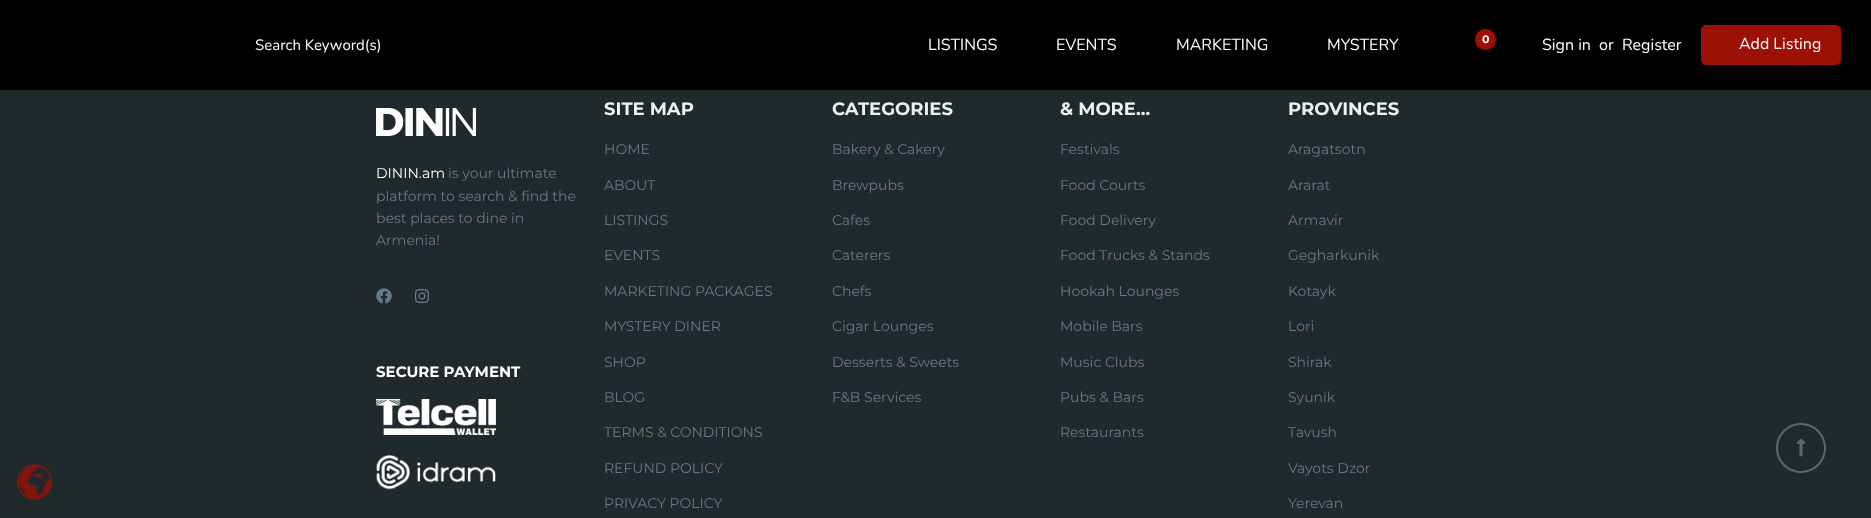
<svg xmlns="http://www.w3.org/2000/svg" width="1871" height="518" viewBox="0 0 1871 518">
  <style>
    .t1 { font: 15px Nunito; fill: #fff; }
    .t2 { font: 16px Nunito; fill: #fff; }
    .t3 { font: bold 11px Montserrat; fill: #fff; }
    .t4 { font: 14px Montserrat; fill: #fff; }
    .t5 { font: 14px Montserrat; fill: #657a85; }
    .t6 { font: bold 15px Montserrat; fill: #fff; }
    .t7 { font: bold 18px Montserrat; fill: #edf1f4; }
  </style>
  <rect width="100%" height="100%" fill="#20292c"/>
  <image x="16" y="464" width="37" height="36" href="images/1.png"/>
  <rect x="0" y="0" width="1871" height="90" fill="#000"/>
  <rect x="0" y="90" width="1871" height="1" fill="#262626"/>
  <text x="255" y="50" class="t1">Search Keyword(s)</text>
  <text x="928" y="50" class="t2">LISTINGS</text>
  <text x="1056" y="50" class="t2">EVENTS</text>
  <text x="1176" y="50" class="t2">MARKETING</text>
  <text x="1327" y="50" class="t2">MYSTERY</text>
  <circle cx="1485.5" cy="39.5" r="10.5" fill="#9c1006"/>
  <text x="1482" y="43" class="t3">0</text>
  <text x="1542" y="50" class="t2">Sign in</text>
  <text x="1599" y="50" class="t2">or</text>
  <text x="1622" y="50" class="t2">Register</text>
  <rect x="1701" y="25" width="140" height="40" rx="5" fill="#9c1006"/>
  <text x="1739" y="49" class="t2">Add Listing</text>
  <image x="376" y="108" width="100" height="28" href="images/2.png"/>
  <text x="376" y="178" class="t4">DININ.am</text>
  <text x="448" y="178" class="t5">is your ultimate</text>
  <text x="376" y="201" class="t5">platform to search &amp; find the</text>
  <text x="376" y="223" class="t5">best places to dine in</text>
  <text x="376" y="245" class="t5">Armenia!</text>
  <image x="376" y="288" width="16" height="16" href="images/3.png"/>
  <image x="415" y="289" width="14" height="14" href="images/4.png"/>
  <text x="376" y="377" class="t6">SECURE PAYMENT</text>
  <image x="376" y="399" width="120" height="36" href="images/5.png"/>
  <image x="376" y="455" width="120" height="35" href="images/6.png"/>
  <text x="604" y="115" class="t7">SITE MAP</text>
  <text x="604" y="154" class="t5">HOME</text>
  <text x="604" y="190" class="t5">ABOUT</text>
  <text x="604" y="225" class="t5">LISTINGS</text>
  <text x="604" y="260" class="t5">EVENTS</text>
  <text x="604" y="296" class="t5">MARKETING PACKAGES</text>
  <text x="604" y="331" class="t5">MYSTERY DINER</text>
  <text x="604" y="367" class="t5">SHOP</text>
  <text x="604" y="402" class="t5">BLOG</text>
  <text x="604" y="437" class="t5">TERMS &amp; CONDITIONS</text>
  <text x="604" y="473" class="t5">REFUND POLICY</text>
  <text x="604" y="508" class="t5">PRIVACY POLICY</text>
  <text x="832" y="115" class="t7">CATEGORIES</text>
  <text x="832" y="154" class="t5">Bakery &amp; Cakery</text>
  <text x="832" y="190" class="t5">Brewpubs</text>
  <text x="832" y="225" class="t5">Cafes</text>
  <text x="832" y="260" class="t5">Caterers</text>
  <text x="832" y="296" class="t5">Chefs</text>
  <text x="832" y="331" class="t5">Cigar Lounges</text>
  <text x="832" y="367" class="t5">Desserts &amp; Sweets</text>
  <text x="832" y="402" class="t5">F&amp;B Services</text>
  <text x="1060" y="115" class="t7">&amp; MORE...</text>
  <text x="1060" y="154" class="t5">Festivals</text>
  <text x="1060" y="190" class="t5">Food Courts</text>
  <text x="1060" y="225" class="t5">Food Delivery</text>
  <text x="1060" y="260" class="t5">Food Trucks &amp; Stands</text>
  <text x="1060" y="296" class="t5">Hookah Lounges</text>
  <text x="1060" y="331" class="t5">Mobile Bars</text>
  <text x="1060" y="367" class="t5">Music Clubs</text>
  <text x="1060" y="402" class="t5">Pubs &amp; Bars</text>
  <text x="1060" y="437" class="t5">Restaurants</text>
  <text x="1288" y="115" class="t7">PROVINCES</text>
  <text x="1288" y="154" class="t5">Aragatsotn</text>
  <text x="1288" y="190" class="t5">Ararat</text>
  <text x="1288" y="225" class="t5">Armavir</text>
  <text x="1288" y="260" class="t5">Gegharkunik</text>
  <text x="1288" y="296" class="t5">Kotayk</text>
  <text x="1288" y="331" class="t5">Lori</text>
  <text x="1288" y="367" class="t5">Shirak</text>
  <text x="1288" y="402" class="t5">Syunik</text>
  <text x="1288" y="437" class="t5">Tavush</text>
  <text x="1288" y="473" class="t5">Vayots Dzor</text>
  <text x="1288" y="508" class="t5">Yerevan</text>
  <circle cx="1801" cy="448" r="24" fill="none" stroke="#656565" stroke-width="2"/>
  <image x="1796" y="438" width="10" height="19" href="images/7.png"/>
</svg>
